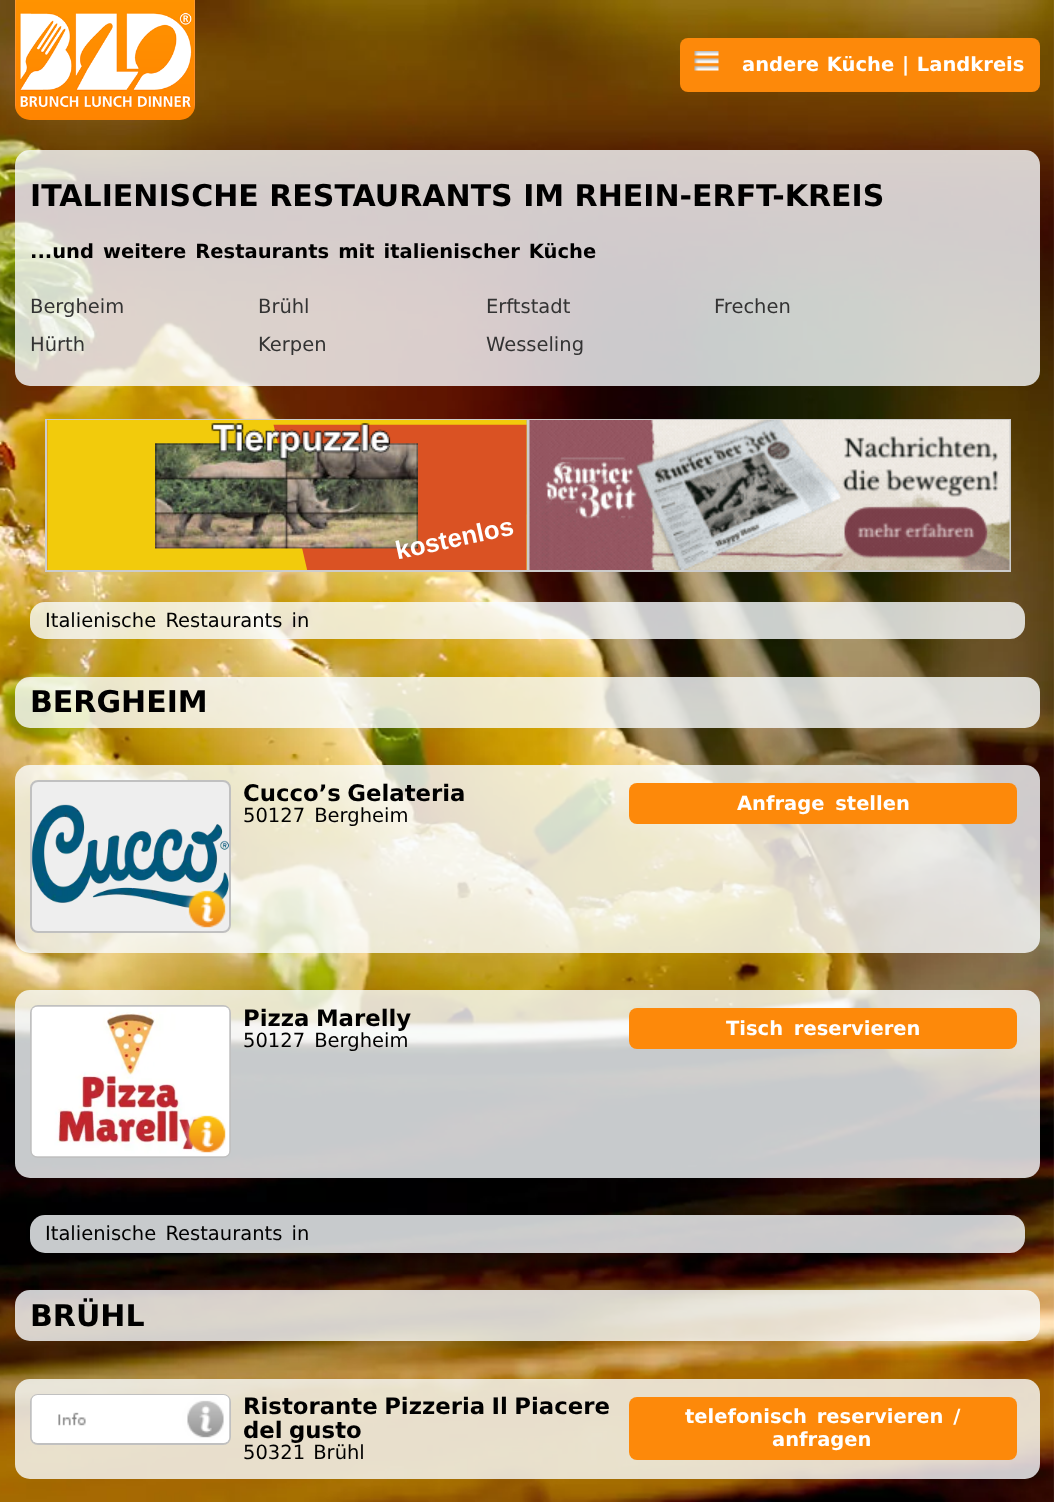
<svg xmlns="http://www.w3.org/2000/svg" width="1054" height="1502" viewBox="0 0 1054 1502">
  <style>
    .t1 { font: bold 19.5px DejaVu Sans; fill: #fff; }
    .t2 { font: bold 30px DejaVu Sans; fill: #000; }
    .t3 { font: bold 19.5px DejaVu Sans; fill: #000; }
    .t4 { font: 19.5px DejaVu Sans; fill: #333; }
    .t5 { font: 19.5px DejaVu Sans; fill: #000; }
    .t6 { font: bold 22.8px DejaVu Sans; fill: #000; }
  </style>
  <rect width="100%" height="100%" fill="#fff"/>
  <image x="0" y="0" width="1054" height="1502" href="images/1.png"/>
  <image x="15" y="0" width="180" height="120" href="images/2.png"/>
  <rect x="680" y="38" width="360" height="54" rx="8" fill="#fd890a"/>
  <image x="694" y="51" width="25" height="20" href="images/3.png"/>
  <text x="742" y="71" word-spacing="1" class="t1">andere Küche | Landkreis</text>
  <rect x="15" y="150" width="1025" height="236" rx="15" fill="#f9fcffcc"/>
  <text x="30" y="206" class="t2">ITALIENISCHE RESTAURANTS IM RHEIN-ERFT-KREIS</text>
  <text x="30" y="258" word-spacing="2.25" class="t3">...und weitere Restaurants mit italienischer Küche</text>
  <text x="30" y="313" class="t4">Bergheim</text>
  <text x="258" y="313" class="t4">Brühl</text>
  <text x="486" y="313" class="t4">Erftstadt</text>
  <text x="714" y="313" class="t4">Frechen</text>
  <text x="30" y="351" class="t4">Hürth</text>
  <text x="258" y="351" class="t4">Kerpen</text>
  <text x="486" y="351" class="t4">Wesseling</text>
  <rect x="46" y="420" width="481" height="151" fill="none" stroke="#ccc" stroke-width="2"/>
  <image x="47" y="420" width="480" height="150" href="images/4.png"/>
  <rect x="529" y="420" width="481" height="151" fill="none" stroke="#ccc" stroke-width="2"/>
  <image x="529" y="420" width="481" height="150" href="images/5.png"/>
  <rect x="30" y="602" width="995" height="37" rx="15" fill="#f9fcffcc"/>
  <text x="45" y="627" word-spacing="3" class="t5">Italienische Restaurants in</text>
  <rect x="15" y="677" width="1025" height="51" rx="15" fill="#f9fcffcc"/>
  <text x="30" y="712" class="t2">BERGHEIM</text>
  <rect x="15" y="765" width="1025" height="188" rx="15" fill="#f9fcffcc"/>
  <rect x="31" y="781" width="199" height="151" rx="7" fill="#eee" stroke="#c0c0c0" stroke-width="2"/>
  <image x="31" y="804" width="198" height="104" href="images/6.png"/>
  <image x="183" y="888" width="43" height="44" href="images/7.png"/>
  <text x="243" y="801" word-spacing="-1.5" class="t6">Cucco’s Gelateria</text>
  <text x="243" y="822" word-spacing="3" class="t5">50127 Bergheim</text>
  <rect x="629" y="783" width="388" height="41" rx="8" fill="#fd890a"/>
  <text x="737" y="810" word-spacing="4" class="t1">Anfrage stellen</text>
  <rect x="15" y="990" width="1025" height="188" rx="15" fill="#f9fcffcc"/>
  <rect x="31" y="1006" width="199" height="151" rx="7" fill="none" stroke="#c0c0c0" stroke-width="2"/>
  <image x="31" y="1006" width="199" height="151" href="images/8.png"/>
  <image x="183" y="1115" width="43" height="38" href="images/9.png"/>
  <text x="243" y="1026" word-spacing="-1.5" class="t6">Pizza Marelly</text>
  <text x="243" y="1047" word-spacing="3" class="t5">50127 Bergheim</text>
  <rect x="629" y="1008" width="388" height="41" rx="8" fill="#fd890a"/>
  <text x="726" y="1035" word-spacing="4" class="t1">Tisch reservieren</text>
  <rect x="30" y="1215" width="995" height="38" rx="15" fill="#f9fcffcc"/>
  <text x="45" y="1240" word-spacing="3" class="t5">Italienische Restaurants in</text>
  <rect x="15" y="1290" width="1025" height="51" rx="15" fill="#f9fcffcc"/>
  <text x="30" y="1326" class="t2">BRÜHL</text>
  <rect x="15" y="1379" width="1025" height="100" rx="15" fill="#f9fcffcc"/>
  <rect x="31" y="1395" width="199" height="49" rx="7" fill="none" stroke="#c0c0c0" stroke-width="2"/>
  <image x="31" y="1395" width="199" height="48" href="images/10.png"/>
  <text x="243" y="1414" word-spacing="-1.5" class="t6">Ristorante Pizzeria Il Piacere</text>
  <text x="243" y="1438" word-spacing="-1.5" class="t6">del gusto</text>
  <text x="243" y="1459" word-spacing="2" class="t5">50321 Brühl</text>
  <rect x="629" y="1397" width="388" height="63" rx="8" fill="#fd890a"/>
  <text x="685" y="1423" word-spacing="3" class="t1">telefonisch reservieren /</text>
  <text x="772" y="1446" class="t1">anfragen</text>
</svg>
